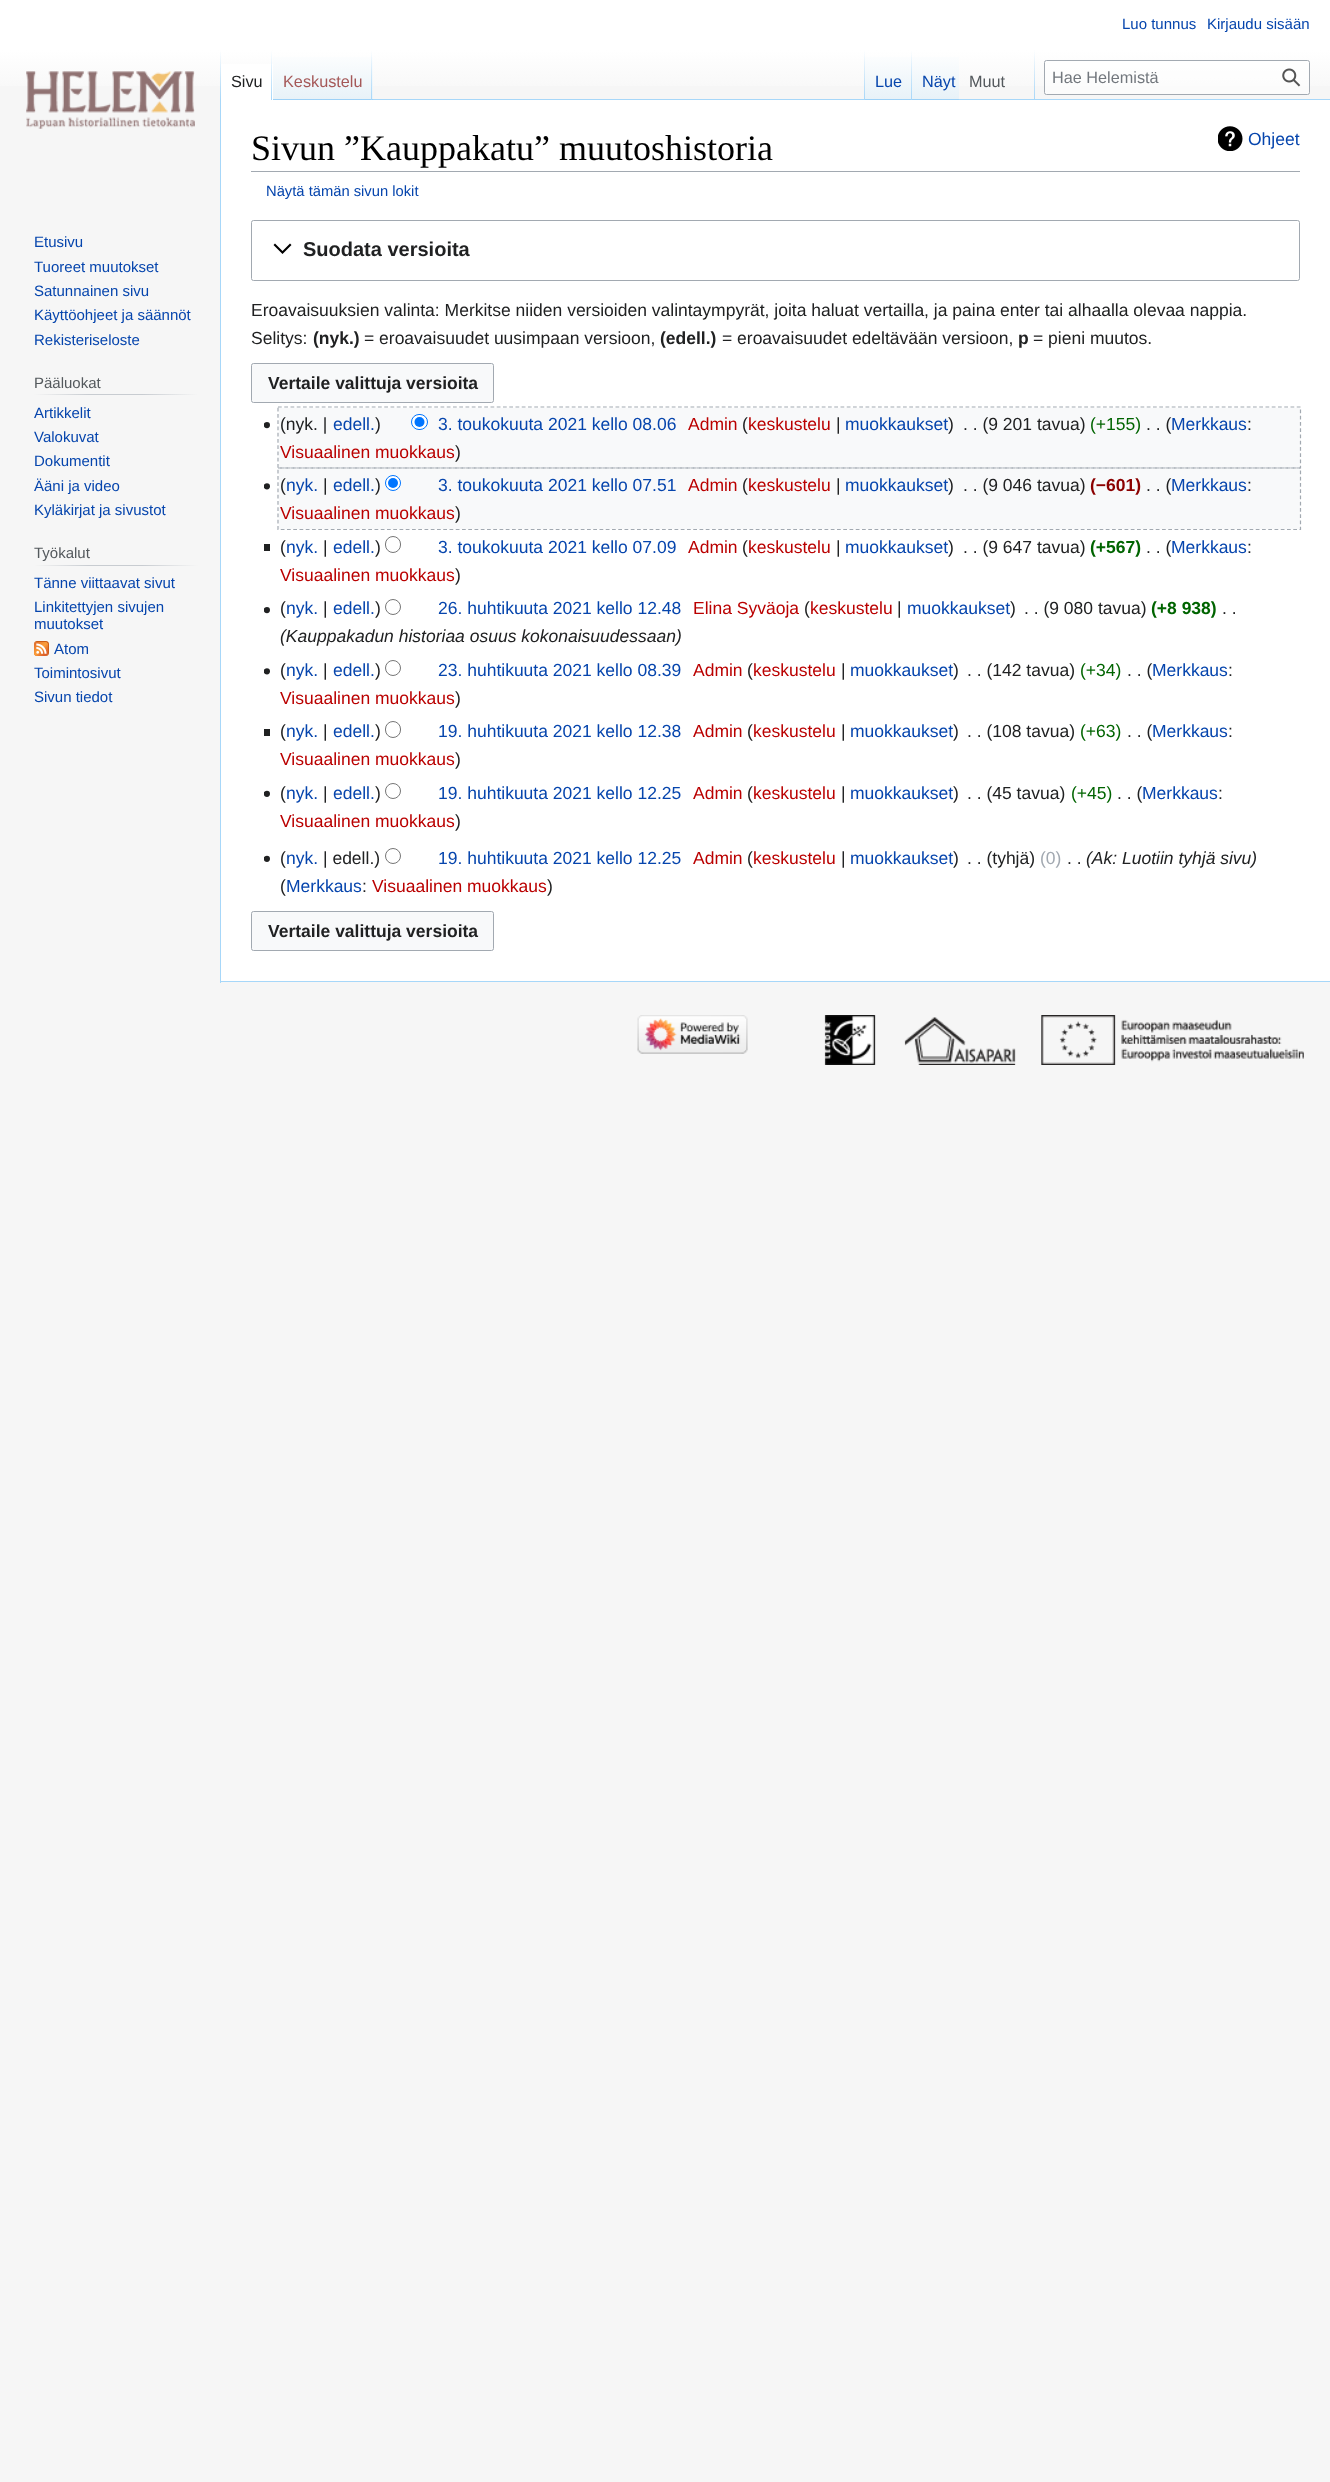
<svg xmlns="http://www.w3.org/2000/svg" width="1330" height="2482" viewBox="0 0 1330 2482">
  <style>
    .t1 { font: 15px Liberation Sans; fill: #0645ad; }
    .t2 { font: 16.25px Liberation Sans; fill: #202122; }
    .t3 { font: 16.25px Liberation Sans; fill: #a55858; }
    .t4 { font: 16.25px Liberation Sans; fill: #0645ad; }
    .t5 { font: 16.25px Liberation Sans; fill: #54595d; }
    .t6 { font: 16.25px Liberation Sans; fill: #72777d; }
    .t7 { font: 15px Liberation Sans; fill: #54595d; }
    .t8 { font: 36px Liberation Serif; fill: #000; }
    .t9 { font: 17.5px Liberation Sans; fill: #0645ad; }
    .t10 { font: 14.75px Liberation Sans; fill: #0645ad; }
    .t11 { font: bold 20px Liberation Sans; fill: #202122; }
    .t12 { font: 17.5px Liberation Sans; fill: #202122; }
    .t13 { font: bold 17.5px Liberation Sans; fill: #202122; }
    .t14 { font: 17.5px Liberation Sans; fill: #ba0000; }
    .t15 { font: 17.5px Liberation Sans; fill: #006400; }
    .t16 { font: bold 17.5px Liberation Sans; fill: #8b0000; }
    .t17 { font: bold 17.5px Liberation Sans; fill: #006400; }
    .t18 { font: italic 17.5px Liberation Sans; fill: #202122; }
    .t19 { font: 17.5px Liberation Sans; fill: #a2a9b1; }
  </style>
  <defs>
    <linearGradient id="g1" gradientUnits="userSpaceOnUse" x1="665" y1="0" x2="665" y2="100"><stop offset="0.5" stop-color="#fff"/><stop offset="1" stop-color="#f6f6f6"/></linearGradient>
    <linearGradient id="g2" gradientUnits="userSpaceOnUse" x1="221" y1="50" x2="221" y2="100"><stop offset="0" stop-color="#a7d7f9" stop-opacity="0"/><stop offset="1" stop-color="#a7d7f9"/></linearGradient>
    <linearGradient id="g3" gradientUnits="userSpaceOnUse" x1="272" y1="50" x2="272" y2="100"><stop offset="0" stop-color="#fff"/><stop offset="1" stop-color="#a7d7f9"/></linearGradient>
    <linearGradient id="g4" gradientUnits="userSpaceOnUse" x1="323" y1="100" x2="323" y2="50"><stop offset="0" stop-color="#77c1f6"/><stop offset="0.03" stop-color="#e8f2f8"/><stop offset="1" stop-color="#fff"/></linearGradient>
    <linearGradient id="g5" gradientUnits="userSpaceOnUse" x1="372" y1="50" x2="372" y2="100"><stop offset="0" stop-color="#a7d7f9" stop-opacity="0"/><stop offset="1" stop-color="#a7d7f9"/></linearGradient>
    <linearGradient id="g6" gradientUnits="userSpaceOnUse" x1="864" y1="50" x2="864" y2="100"><stop offset="0" stop-color="#a7d7f9" stop-opacity="0"/><stop offset="1" stop-color="#a7d7f9"/></linearGradient>
    <linearGradient id="g7" gradientUnits="userSpaceOnUse" x1="889" y1="100" x2="889" y2="50"><stop offset="0" stop-color="#77c1f6"/><stop offset="0.03" stop-color="#e8f2f8"/><stop offset="1" stop-color="#fff"/></linearGradient>
    <linearGradient id="g8" gradientUnits="userSpaceOnUse" x1="912" y1="50" x2="912" y2="100"><stop offset="0" stop-color="#a7d7f9" stop-opacity="0"/><stop offset="1" stop-color="#a7d7f9"/></linearGradient>
    <linearGradient id="g9" gradientUnits="userSpaceOnUse" x1="936" y1="100" x2="936" y2="50"><stop offset="0" stop-color="#77c1f6"/><stop offset="0.03" stop-color="#e8f2f8"/><stop offset="1" stop-color="#fff"/></linearGradient>
    <linearGradient id="g10" gradientUnits="userSpaceOnUse" x1="1034" y1="50" x2="1034" y2="100"><stop offset="0" stop-color="#a7d7f9" stop-opacity="0"/><stop offset="1" stop-color="#a7d7f9"/></linearGradient>
    <linearGradient id="g11" gradientUnits="userSpaceOnUse" x1="34" y1="394" x2="198" y2="394"><stop offset="0" stop-color="#f6f6f6"/><stop offset="0.33" stop-color="#c8ccd1"/><stop offset="0.66" stop-color="#c8ccd1"/><stop offset="1" stop-color="#f6f6f6"/></linearGradient>
    <linearGradient id="g12" gradientUnits="userSpaceOnUse" x1="34" y1="566" x2="198" y2="566"><stop offset="0" stop-color="#f6f6f6"/><stop offset="0.33" stop-color="#c8ccd1"/><stop offset="0.66" stop-color="#c8ccd1"/><stop offset="1" stop-color="#f6f6f6"/></linearGradient>
  </defs>
  <rect width="100%" height="100%" fill="#f6f6f6"/>
  <rect x="0" y="0" width="1330" height="86" fill="url(#g1)"/>
  <text x="1122" y="29" class="t1">Luo tunnus</text>
  <text x="1207" y="29" class="t1">Kirjaudu sisään</text>
  <rect x="220" y="981" width="1110" height="1" fill="#a7d7f9"/>
  <rect x="220" y="99" width="1" height="884" fill="#a7d7f9"/>
  <rect x="220" y="50" width="1" height="50" fill="url(#g2)"/>
  <rect x="221" y="64" width="52" height="36" fill="#fff"/>
  <rect x="271" y="50" width="1" height="50" fill="url(#g3)"/>
  <text x="231" y="87" class="t2">Sivu</text>
  <rect x="273" y="57" width="100" height="43" fill="url(#g4)"/>
  <rect x="371" y="50" width="1" height="50" fill="url(#g5)"/>
  <text x="283" y="87" class="t3">Keskustelu</text>
  <rect x="373" y="99" width="957" height="1" fill="#a7d7f9"/>
  <rect x="864" y="50" width="1" height="50" fill="url(#g6)"/>
  <rect x="865" y="57" width="48" height="43" fill="url(#g7)"/>
  <rect x="911" y="50" width="1" height="50" fill="url(#g8)"/>
  <text x="875" y="87" class="t4">Lue</text>
  <rect x="913" y="57" width="46" height="43" fill="url(#g9)"/>
  <text x="922" y="87" class="t4">Näyt</text>
  <rect x="1034" y="50" width="1" height="50" fill="url(#g10)"/>
  <text x="969" y="87" class="t5">Muut</text>
  <rect x="1044.5" y="60.5" width="265" height="34" rx="2" fill="#ffffff80" stroke="#a2a9b1"/>
  <text x="1052" y="83" class="t6">Hae Helemistä</text>
  <image x="1282" y="68" width="19" height="19" href="images/1.png"/>
  <image x="26" y="71" width="169" height="58" href="images/2.png"/>
  <text x="34" y="247" class="t1">Etusivu</text>
  <text x="34" y="272" class="t1">Tuoreet muutokset</text>
  <text x="34" y="296" class="t1">Satunnainen sivu</text>
  <text x="34" y="320" class="t1">Käyttöohjeet ja säännöt</text>
  <text x="34" y="345" class="t1">Rekisteriseloste</text>
  <rect x="34" y="394" width="164" height="1" fill="url(#g11)"/>
  <text x="34" y="388" class="t7">Pääluokat</text>
  <text x="34" y="418" class="t1">Artikkelit</text>
  <text x="34" y="442" class="t1">Valokuvat</text>
  <text x="34" y="466" class="t1">Dokumentit</text>
  <text x="34" y="491" class="t1">Ääni ja video</text>
  <text x="34" y="515" class="t1">Kyläkirjat ja sivustot</text>
  <rect x="34" y="565" width="164" height="1" fill="url(#g12)"/>
  <text x="34" y="558" class="t7">Työkalut</text>
  <text x="34" y="588" class="t1">Tänne viittaavat sivut</text>
  <text x="34" y="612" class="t1">Linkitettyjen sivujen</text>
  <text x="34" y="629" class="t1">muutokset</text>
  <image x="34" y="641" width="15" height="15" href="images/3.png"/>
  <text x="54" y="654" class="t1">Atom</text>
  <text x="34" y="678" class="t1">Toimintosivut</text>
  <text x="34" y="702" class="t1">Sivun tiedot</text>
  <rect x="221" y="100" width="1109" height="881" fill="#fff"/>
  <rect x="251" y="171" width="1049" height="1" fill="#a2a9b1"/>
  <text x="251" y="160" class="t8">Sivun ”Kauppakatu” muutoshistoria</text>
  <image x="1218" y="126" width="25" height="25" href="images/4.png"/>
  <text x="1248" y="145" class="t9">Ohjeet</text>
  <text x="266" y="196" class="t10">Näytä tämän sivun lokit</text>
  <rect x="251.5" y="220.5" width="1048" height="60" rx="2" fill="none" stroke="#a2a9b1"/>
  <path d="M290 243.5L282.5 251L275 243.5L273.5 245L282.5 254L291.5 245Z" fill="#000"/>
  <text x="303" y="256" class="t11">Suodata versioita</text>
  <text x="251" y="316" class="t12">Eroavaisuuksien valinta: Merkitse niiden versioiden valintaympyrät, joita haluat vertailla, ja paina enter tai alhaalla olevaa nappia.</text>
  <text x="251" y="344" class="t12">Selitys:</text>
  <text x="313" y="344" class="t13">(nyk.)</text>
  <text x="364" y="344" class="t12">= eroavaisuudet uusimpaan versioon,</text>
  <text x="660" y="344" class="t13">(edell.)</text>
  <text x="722" y="344" class="t12">= eroavaisuudet edeltävään versioon,</text>
  <text x="1018" y="344" class="t13">p</text>
  <text x="1033" y="344" class="t12">= pieni muutos.</text>
  <rect x="251.5" y="363.5" width="242" height="39" rx="2" fill="#f8f9fa" stroke="#a2a9b1"/>
  <text x="268" y="389" class="t13">Vertaile valittuja versioita</text>
  <rect x="279" y="408" width="1021" height="60" fill="#f8f9fa"/>
  <image x="264" y="422" width="6" height="7" href="images/5.png"/>
  <text x="280" y="430" class="t12">(nyk. |</text>
  <text x="333" y="430" class="t9">edell.</text>
  <text x="375" y="430" class="t12">)</text>
  <rect x="411.5" y="414.5" width="16" height="15" rx="7.5" fill="#fff" stroke="#0075ff"/>
  <circle cx="419.5" cy="422" r="5" fill="#0075ff"/>
  <text x="438" y="430" class="t9">3. toukokuuta 2021 kello 08.06</text>
  <text x="688" y="430" class="t14">Admin</text>
  <text x="742" y="430" class="t12">(</text>
  <text x="748" y="430" class="t14">keskustelu</text>
  <text x="836" y="430" class="t12">|</text>
  <text x="845" y="430" class="t9">muokkaukset</text>
  <text x="948" y="430" class="t12">)</text>
  <text x="963" y="430" class="t12">. . (9 201 tavua)</text>
  <text x="1090" y="430" class="t15">(+155)</text>
  <text x="1146" y="430" class="t12">. . (</text>
  <text x="1171" y="430" class="t9">Merkkaus</text>
  <text x="1247" y="430" class="t12">:</text>
  <text x="280" y="458" class="t14">Visuaalinen muokkaus</text>
  <text x="455" y="458" class="t12">)</text>
  <path d="M278 407H1300.5V468H278Z" fill="none" stroke="#a2a9b1" stroke-width="1.2" stroke-dasharray="3.75 2.5"/>
  <rect x="279" y="469" width="1021" height="60" fill="#f8f9fa"/>
  <image x="264" y="483" width="6" height="7" href="images/6.png"/>
  <text x="280" y="491" class="t12">(</text>
  <text x="286" y="491" class="t9">nyk.</text>
  <text x="323" y="491" class="t12">|</text>
  <text x="333" y="491" class="t9">edell.</text>
  <text x="375" y="491" class="t12">)</text>
  <circle cx="393" cy="483" r="7.5" fill="#fff" stroke="#0075ff"/>
  <circle cx="393" cy="483" r="5" fill="#0075ff"/>
  <text x="438" y="491" class="t9">3. toukokuuta 2021 kello 07.51</text>
  <text x="688" y="491" class="t14">Admin</text>
  <text x="742" y="491" class="t12">(</text>
  <text x="748" y="491" class="t14">keskustelu</text>
  <text x="836" y="491" class="t12">|</text>
  <text x="845" y="491" class="t9">muokkaukset</text>
  <text x="948" y="491" class="t12">)</text>
  <text x="963" y="491" class="t12">. . (9 046 tavua)</text>
  <text x="1090" y="491" class="t16">(−601)</text>
  <text x="1146" y="491" class="t12">. . (</text>
  <text x="1171" y="491" class="t9">Merkkaus</text>
  <text x="1247" y="491" class="t12">:</text>
  <text x="280" y="519" class="t14">Visuaalinen muokkaus</text>
  <text x="455" y="519" class="t12">)</text>
  <path d="M278 468H1300.5V529.5H278Z" fill="none" stroke="#a2a9b1" stroke-width="1.2" stroke-dasharray="3.75 2.5"/>
  <rect x="264" y="544" width="6" height="7" fill="#202122"/>
  <text x="280" y="553" class="t12">(</text>
  <text x="286" y="553" class="t9">nyk.</text>
  <text x="323" y="553" class="t12">|</text>
  <text x="333" y="553" class="t9">edell.</text>
  <text x="375" y="553" class="t12">)</text>
  <rect x="385.5" y="536.5" width="15" height="16" rx="7.5" fill="none" stroke="#767676"/>
  <text x="438" y="553" class="t9">3. toukokuuta 2021 kello 07.09</text>
  <text x="688" y="553" class="t14">Admin</text>
  <text x="742" y="553" class="t12">(</text>
  <text x="748" y="553" class="t14">keskustelu</text>
  <text x="836" y="553" class="t12">|</text>
  <text x="845" y="553" class="t9">muokkaukset</text>
  <text x="948" y="553" class="t12">)</text>
  <text x="963" y="553" class="t12">. . (9 647 tavua)</text>
  <text x="1090" y="553" class="t17">(+567)</text>
  <text x="1146" y="553" class="t12">. . (</text>
  <text x="1171" y="553" class="t9">Merkkaus</text>
  <text x="1247" y="553" class="t12">:</text>
  <text x="280" y="581" class="t14">Visuaalinen muokkaus</text>
  <text x="455" y="581" class="t12">)</text>
  <image x="264" y="607" width="6" height="7" href="images/5.png"/>
  <text x="280" y="614" class="t12">(</text>
  <text x="286" y="614" class="t9">nyk.</text>
  <text x="323" y="614" class="t12">|</text>
  <text x="333" y="614" class="t9">edell.</text>
  <text x="375" y="614" class="t12">)</text>
  <circle cx="393" cy="607" r="7.5" fill="none" stroke="#767676"/>
  <text x="438" y="614" class="t9">26. huhtikuuta 2021 kello 12.48</text>
  <text x="693" y="614" class="t14">Elina Syväoja</text>
  <text x="804" y="614" class="t12">(</text>
  <text x="810" y="614" class="t14">keskustelu</text>
  <text x="897" y="614" class="t12">|</text>
  <text x="907" y="614" class="t9">muokkaukset</text>
  <text x="1010" y="614" class="t12">)</text>
  <text x="1024" y="614" class="t12">. . (9 080 tavua)</text>
  <text x="1151" y="614" class="t17">(+8 938)</text>
  <text x="1222" y="614" class="t12">. .</text>
  <text x="280" y="642" class="t18">(Kauppakadun historiaa osuus kokonaisuudessaan)</text>
  <image x="264" y="668" width="6" height="7" href="images/6.png"/>
  <text x="280" y="676" class="t12">(</text>
  <text x="286" y="676" class="t9">nyk.</text>
  <text x="323" y="676" class="t12">|</text>
  <text x="333" y="676" class="t9">edell.</text>
  <text x="375" y="676" class="t12">)</text>
  <circle cx="393" cy="668" r="7.5" fill="none" stroke="#767676"/>
  <text x="438" y="676" class="t9">23. huhtikuuta 2021 kello 08.39</text>
  <text x="693" y="676" class="t14">Admin</text>
  <text x="747" y="676" class="t12">(</text>
  <text x="753" y="676" class="t14">keskustelu</text>
  <text x="841" y="676" class="t12">|</text>
  <text x="850" y="676" class="t9">muokkaukset</text>
  <text x="953" y="676" class="t12">)</text>
  <text x="967" y="676" class="t12">. . (142 tavua)</text>
  <text x="1080" y="676" class="t15">(+34)</text>
  <text x="1127" y="676" class="t12">. . (</text>
  <text x="1152" y="676" class="t9">Merkkaus</text>
  <text x="1228" y="676" class="t12">:</text>
  <text x="280" y="704" class="t14">Visuaalinen muokkaus</text>
  <text x="455" y="704" class="t12">)</text>
  <rect x="264" y="729" width="6" height="7" fill="#202122"/>
  <text x="280" y="737" class="t12">(</text>
  <text x="286" y="737" class="t9">nyk.</text>
  <text x="323" y="737" class="t12">|</text>
  <text x="333" y="737" class="t9">edell.</text>
  <text x="375" y="737" class="t12">)</text>
  <rect x="385.5" y="721.5" width="15" height="16" rx="7.5" fill="none" stroke="#767676"/>
  <text x="438" y="737" class="t9">19. huhtikuuta 2021 kello 12.38</text>
  <text x="693" y="737" class="t14">Admin</text>
  <text x="747" y="737" class="t12">(</text>
  <text x="753" y="737" class="t14">keskustelu</text>
  <text x="841" y="737" class="t12">|</text>
  <text x="850" y="737" class="t9">muokkaukset</text>
  <text x="953" y="737" class="t12">)</text>
  <text x="967" y="737" class="t12">. . (108 tavua)</text>
  <text x="1080" y="737" class="t15">(+63)</text>
  <text x="1127" y="737" class="t12">. . (</text>
  <text x="1152" y="737" class="t9">Merkkaus</text>
  <text x="1228" y="737" class="t12">:</text>
  <text x="280" y="765" class="t14">Visuaalinen muokkaus</text>
  <text x="455" y="765" class="t12">)</text>
  <image x="264" y="790" width="6" height="7" href="images/7.png"/>
  <text x="280" y="799" class="t12">(</text>
  <text x="286" y="799" class="t9">nyk.</text>
  <text x="323" y="799" class="t12">|</text>
  <text x="333" y="799" class="t9">edell.</text>
  <text x="375" y="799" class="t12">)</text>
  <circle cx="393" cy="791" r="7.5" fill="none" stroke="#767676"/>
  <text x="438" y="799" class="t9">19. huhtikuuta 2021 kello 12.25</text>
  <text x="693" y="799" class="t14">Admin</text>
  <text x="747" y="799" class="t12">(</text>
  <text x="753" y="799" class="t14">keskustelu</text>
  <text x="841" y="799" class="t12">|</text>
  <text x="850" y="799" class="t9">muokkaukset</text>
  <text x="953" y="799" class="t12">)</text>
  <text x="967" y="799" class="t12">. . (45 tavua)</text>
  <text x="1071" y="799" class="t15">(+45)</text>
  <text x="1117" y="799" class="t12">. . (</text>
  <text x="1142" y="799" class="t9">Merkkaus</text>
  <text x="1218" y="799" class="t12">:</text>
  <text x="280" y="827" class="t14">Visuaalinen muokkaus</text>
  <text x="455" y="827" class="t12">)</text>
  <image x="264" y="855" width="6" height="7" href="images/7.png"/>
  <text x="280" y="864" class="t12">(</text>
  <text x="286" y="864" class="t9">nyk.</text>
  <text x="323" y="864" class="t12">| edell.)</text>
  <circle cx="393" cy="856" r="7.5" fill="none" stroke="#767676"/>
  <text x="438" y="864" class="t9">19. huhtikuuta 2021 kello 12.25</text>
  <text x="693" y="864" class="t14">Admin</text>
  <text x="747" y="864" class="t12">(</text>
  <text x="753" y="864" class="t14">keskustelu</text>
  <text x="841" y="864" class="t12">|</text>
  <text x="850" y="864" class="t9">muokkaukset</text>
  <text x="953" y="864" class="t12">)</text>
  <text x="967" y="864" class="t12">. . (tyhjä)</text>
  <text x="1040" y="864" class="t19">(0)</text>
  <text x="1067" y="864" class="t12">. .</text>
  <text x="1086" y="864" class="t18">(Ak: Luotiin tyhjä sivu)</text>
  <text x="280" y="892" class="t12">(</text>
  <text x="286" y="892" class="t9">Merkkaus</text>
  <text x="362" y="892" class="t12">:</text>
  <text x="372" y="892" class="t14">Visuaalinen muokkaus</text>
  <text x="547" y="892" class="t12">)</text>
  <rect x="251.5" y="911.5" width="242" height="39" rx="2" fill="#f8f9fa" stroke="#a2a9b1"/>
  <text x="268" y="937" class="t13">Vertaile valittuja versioita</text>
  <image x="637" y="1015" width="111" height="39" href="images/8.png"/>
  <image x="824" y="1015" width="480" height="50" href="images/9.png"/>
</svg>
